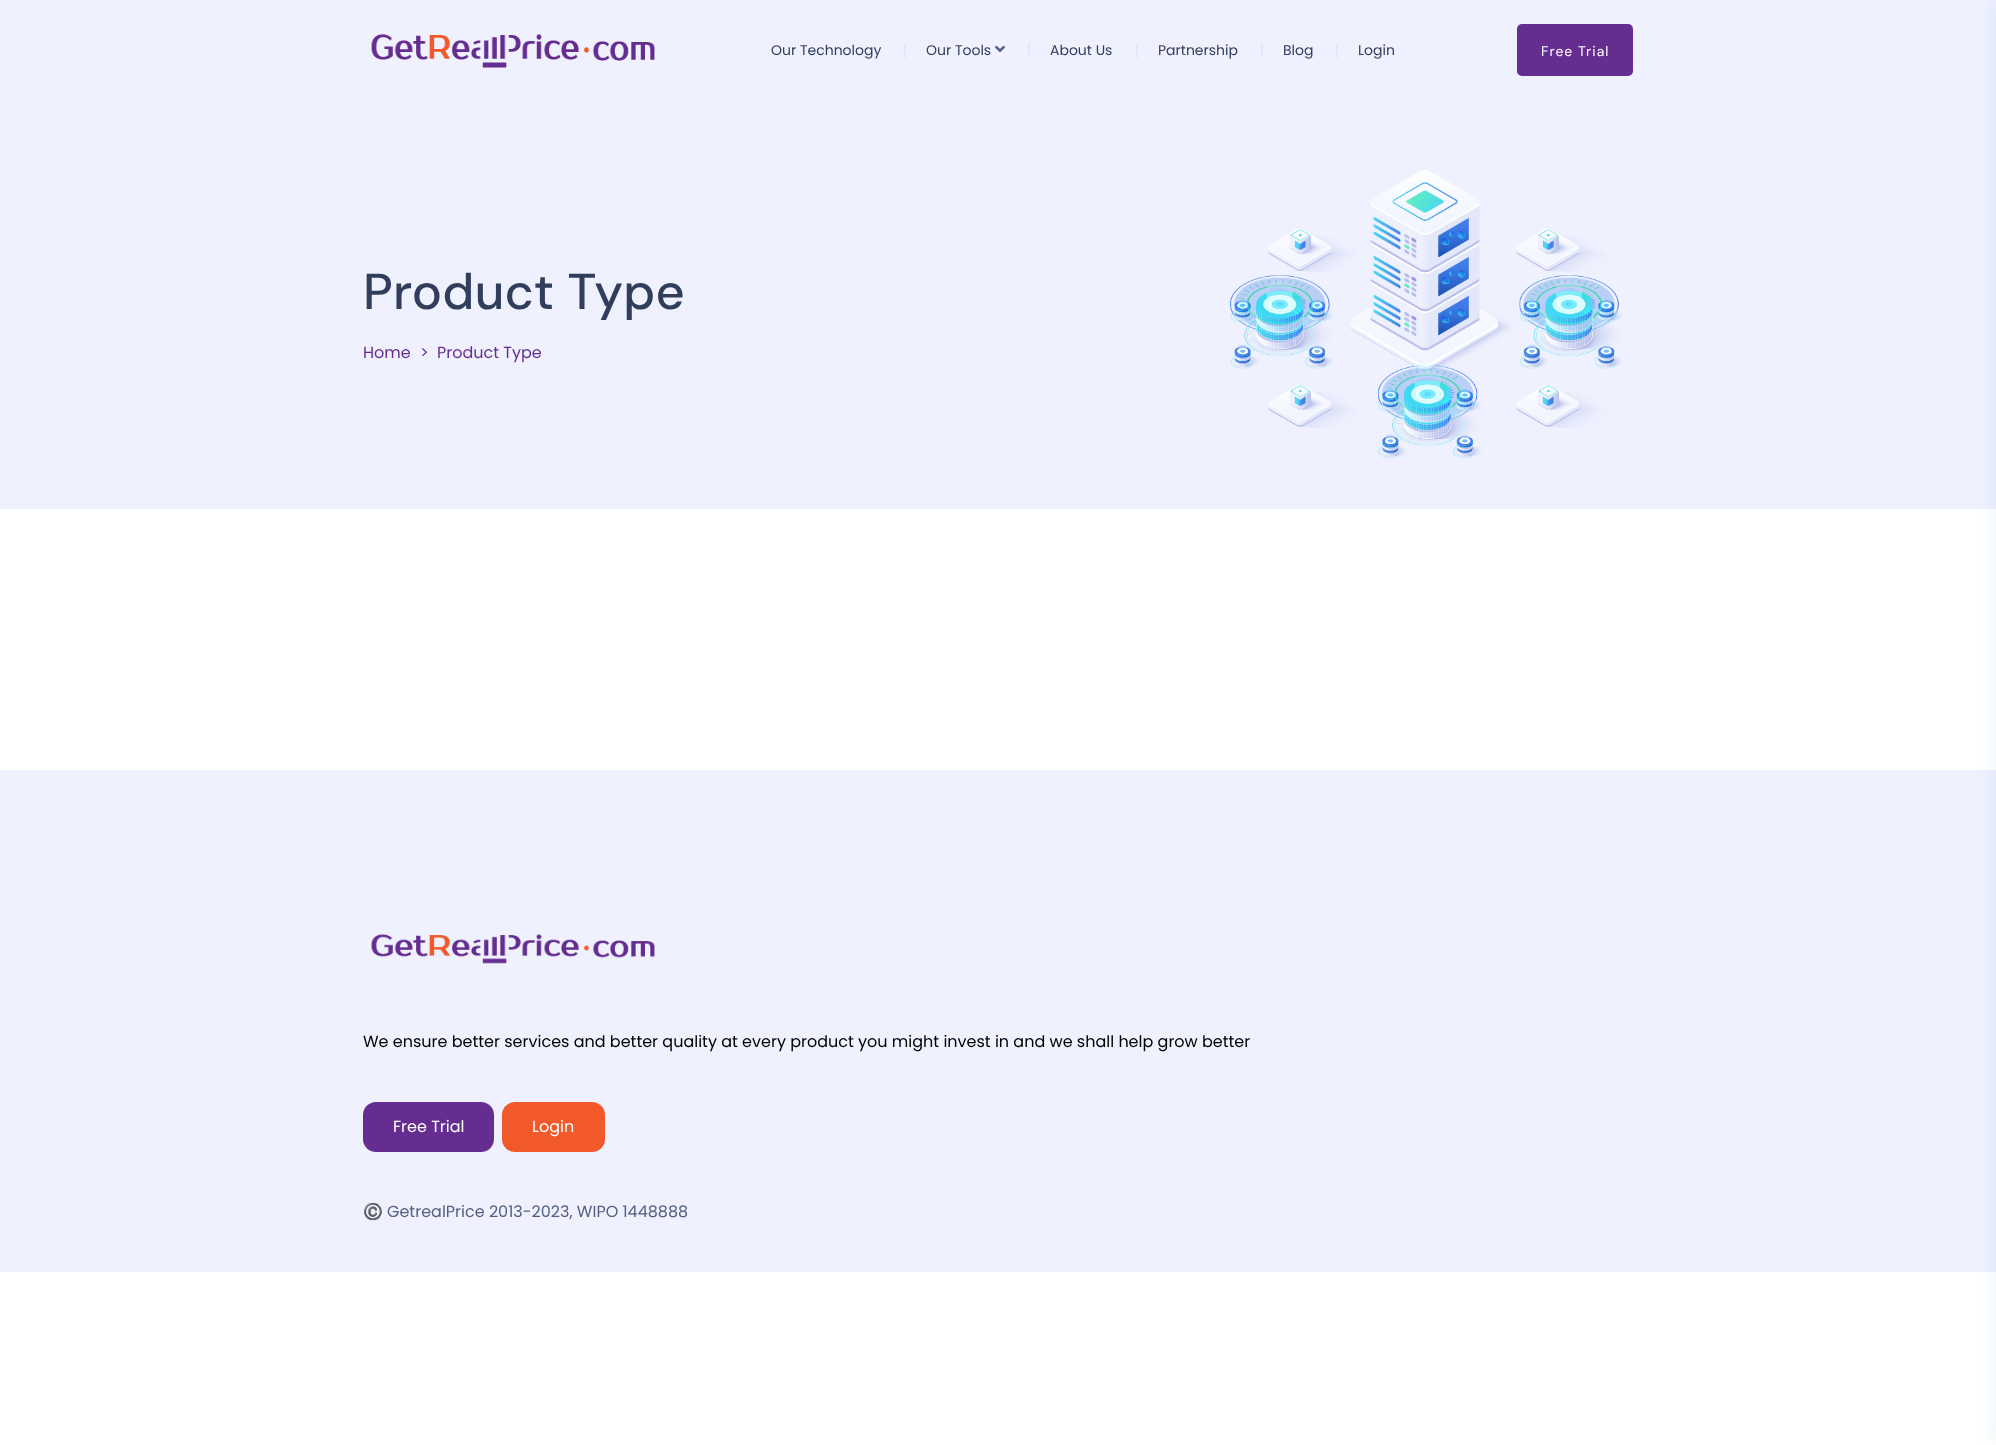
<svg xmlns="http://www.w3.org/2000/svg" width="1996" height="1445" viewBox="0 0 1996 1445">
  <style>
    .t1 { font: 14px Poppins; fill: #313e5b; }
    .t2 { font: 14px DM Sans; letter-spacing: 1px; fill: #fff; }
    .t3 { font: 500 50.5px DM Sans; letter-spacing: 0.25px; fill: #313e5b; }
    .t4 { font: 16px Poppins; fill: #662d91; }
    .t5 { font: 16px Poppins; fill: #000; }
    .t6 { font: 16px Poppins; fill: #fff; }
    .t7 { font: 16px Noto Color Emoji; fill: #525f81; }
    .t8 { font: 16px Poppins; fill: #525f81; }
  </style>
  <rect width="100%" height="100%" fill="#fff"/>
  <rect x="0" y="0" width="1996" height="509" fill="#eff1fe"/>
  <image x="371" y="34" width="284" height="34" href="images/1.png"/>
  <text x="771" y="55" class="t1">Our Technology</text>
  <rect x="904" y="43" width="2" height="15" fill="#e4e8ff"/>
  <text x="926" y="55" class="t1">Our Tools</text>
  <image x="995" y="45" width="10" height="8" href="images/2.png"/>
  <rect x="1028" y="43" width="2" height="15" fill="#e4e8ff"/>
  <text x="1050" y="55" class="t1">About Us</text>
  <rect x="1136" y="43" width="2" height="15" fill="#e4e8ff"/>
  <text x="1158" y="55" class="t1">Partnership</text>
  <rect x="1261" y="43" width="2" height="15" fill="#e4e8ff"/>
  <text x="1283" y="55" class="t1">Blog</text>
  <rect x="1336" y="43" width="2" height="15" fill="#e4e8ff"/>
  <text x="1358" y="55" class="t1">Login</text>
  <rect x="1517" y="24" width="116" height="52" rx="5" fill="#662d91"/>
  <text x="1541" y="56" class="t2">Free Trial</text>
  <text x="363" y="309" class="t3">Product Type</text>
  <text x="363" y="358" class="t4">Home</text>
  <text x="420" y="358" class="t4">&gt;</text>
  <text x="437" y="358" class="t4">Product Type</text>
  <image x="1230" y="170" width="393" height="289" href="images/3.png"/>
  <rect x="0" y="770" width="1996" height="502" fill="#eff1fe"/>
  <image x="371" y="934" width="284" height="30" href="images/4.png"/>
  <text x="363" y="1047" class="t5">We ensure better services and better quality at every product you might invest in and we shall help grow better</text>
  <rect x="363" y="1102" width="131" height="50" rx="13" fill="#662d91"/>
  <text x="393" y="1132" class="t6">Free Trial</text>
  <rect x="502" y="1102" width="103" height="50" rx="13" fill="#f1592a"/>
  <text x="532" y="1132" class="t6">Login</text>
  <text x="363" y="1217" class="t7">©️</text>
  <text x="387" y="1217" class="t8">GetrealPrice 2013-2023, WIPO 1448888</text>
  <rect x="1996" y="0" width="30" height="1445" fill="#2c65901a" filter="blur(10px)"/>
</svg>
